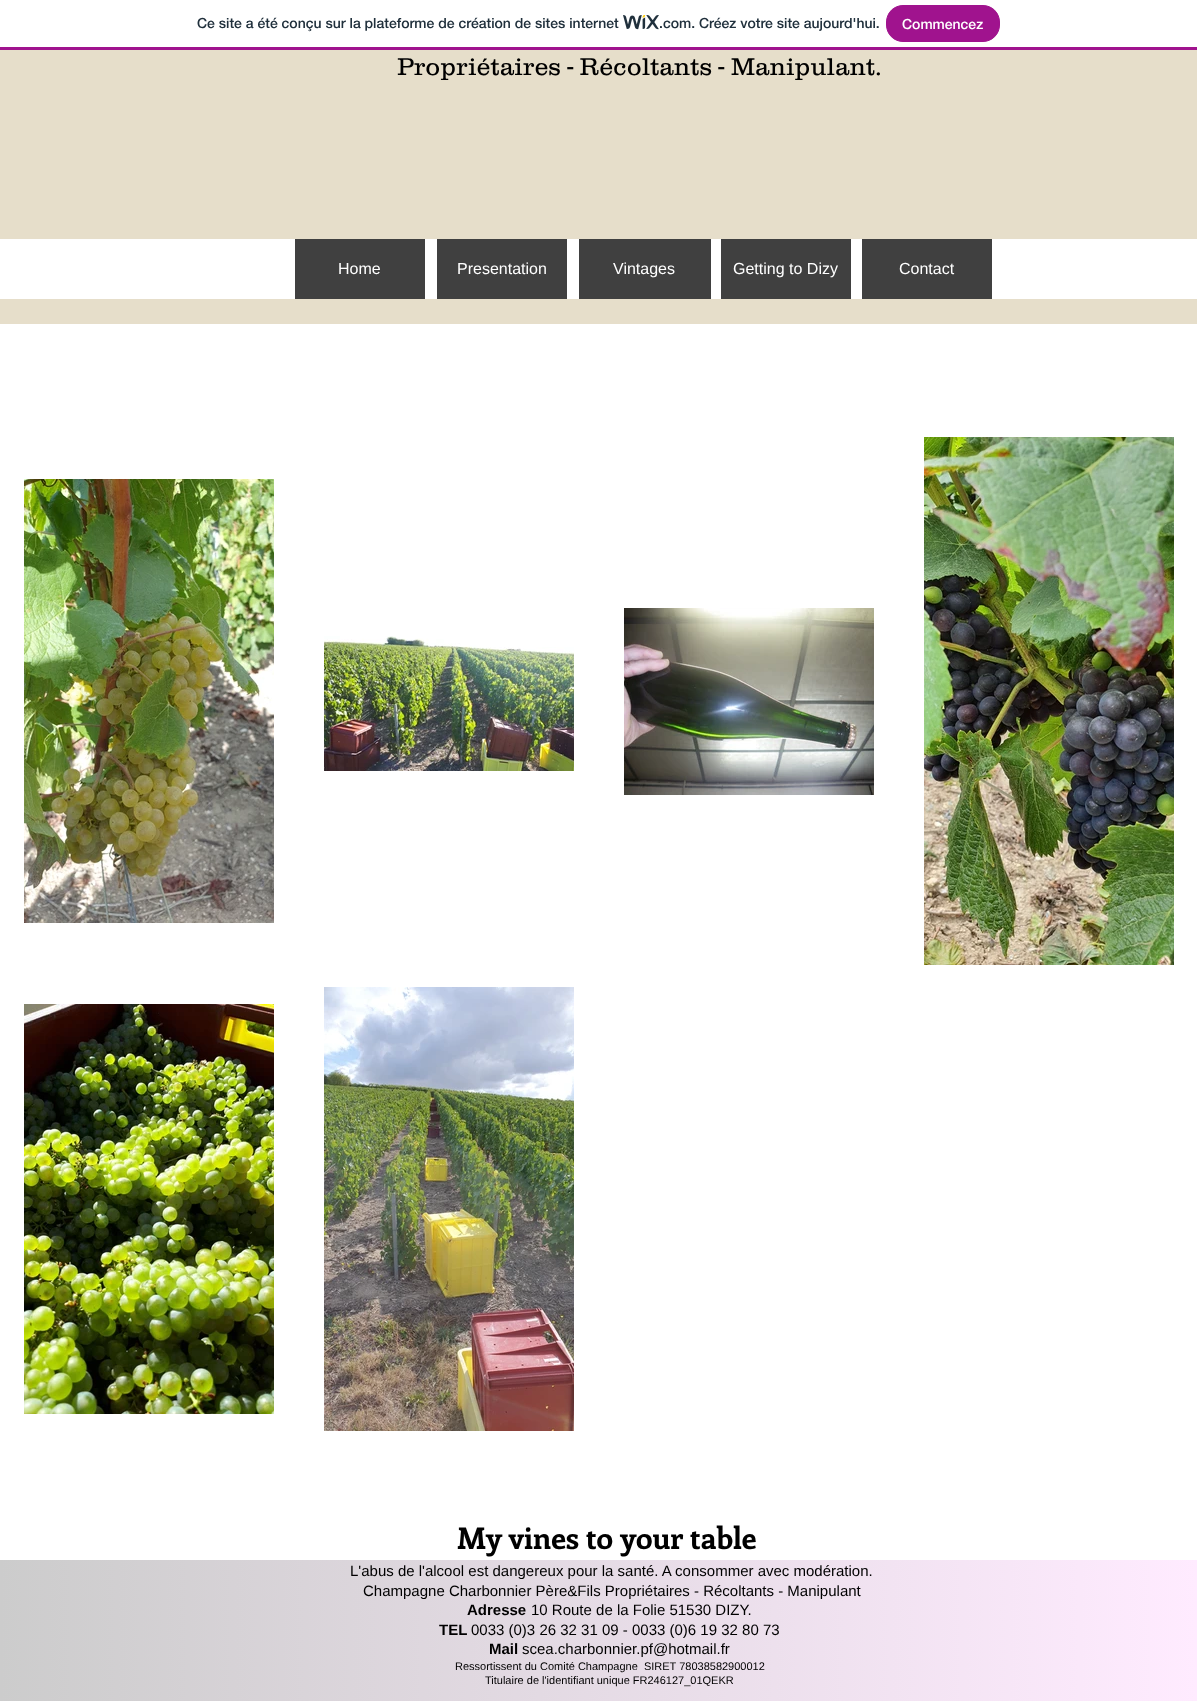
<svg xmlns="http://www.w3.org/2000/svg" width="1197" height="1701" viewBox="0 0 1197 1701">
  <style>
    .t1 { font: 500 14px 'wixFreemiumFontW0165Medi'; fill: #20303c; }
    .t2 { font: 500 14px 'wixFreemiumFontW0165Medi'; fill: #fff; }
    .t3 { font: 300 25px 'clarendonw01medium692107'; fill: #000; }
    .t4 { font: 16px Liberation Sans; fill: #fff; }
    .t5 { font: bold 30px Enriqueta; fill: #000; }
    .t6 { font: 15px Liberation Sans; fill: #000; }
    .t7 { font: bold 15px Liberation Sans; fill: #000; }
    .t8 { font: 11px Liberation Sans; fill: #000; }
  </style>
  <defs>
    <linearGradient id="g1" gradientUnits="userSpaceOnUse" x1="0" y1="1631" x2="1197" y2="1631"><stop offset="0" stop-color="#ccc"/><stop offset="1" stop-color="#ffebff"/></linearGradient>
  </defs>
  <rect width="100%" height="100%" fill="#fff"/>
  <rect x="0" y="47" width="1197" height="3" fill="#a0138e"/>
  <text x="197" y="28" class="t1">Ce site a été conçu sur la plateforme de création de sites internet</text>
  <image x="623" y="15" width="36" height="15" href="images/1.png"/>
  <text x="659" y="28" class="t1">.com. Créez votre site aujourd'hui.</text>
  <rect x="886.5" y="5.5" width="113" height="36" rx="16.5" fill="#a0138e" stroke="#a0138e"/>
  <text x="902" y="29" class="t2">Commencez</text>
  <rect x="0" y="50" width="1197" height="274" fill="#e6deca"/>
  <text x="397" y="75" class="t3">Propriétaires - Récoltants - Manipulant.</text>
  <rect x="0" y="239" width="1197" height="60" fill="#fff"/>
  <rect x="579" y="239" width="132" height="60" fill="#404040"/>
  <rect x="295" y="239" width="130" height="60" fill="#404040"/>
  <text x="338" y="274" class="t4">Home</text>
  <rect x="437" y="239" width="130" height="60" fill="#404040"/>
  <text x="457" y="274" class="t4">Presentation</text>
  <text x="613" y="274" class="t4">Vintages</text>
  <rect x="721" y="239" width="130" height="60" fill="#404040"/>
  <text x="733" y="274" class="t4">Getting to Dizy</text>
  <rect x="862" y="239" width="130" height="60" fill="#404040"/>
  <text x="899" y="274" class="t4">Contact</text>
  <image x="24" y="479" width="250" height="444" href="images/2.png"/>
  <image x="324" y="636" width="250" height="135" href="images/3.png"/>
  <image x="624" y="608" width="250" height="187" href="images/4.png"/>
  <image x="924" y="437" width="250" height="528" href="images/5.png"/>
  <image x="24" y="1004" width="250" height="410" href="images/6.png"/>
  <image x="324" y="987" width="250" height="444" href="images/7.png"/>
  <text x="457" y="1549" class="t5">My vines to your table</text>
  <rect x="0" y="1560" width="1197" height="141" fill="url(#g1)"/>
  <text x="350" y="1576" class="t6">L'abus de l'alcool est dangereux pour la santé. A consommer avec modération.</text>
  <text x="363" y="1596" class="t6">Champagne Charbonnier Père&amp;Fils Propriétaires - Récoltants - Manipulant</text>
  <text x="467" y="1615" class="t7">Adresse</text>
  <text x="531" y="1615" class="t6">10 Route de la Folie 51530 DIZY.</text>
  <text x="439" y="1635" class="t7">TEL</text>
  <text x="471" y="1635" class="t6">0033 (0)3 26 32 31 09 - 0033 (0)6 19 32 80 73</text>
  <text x="489" y="1654" class="t7">Mail</text>
  <text x="522" y="1654" class="t6">scea.charbonnier.pf@hotmail.fr</text>
  <text x="455" y="1670" class="t8" xml:space="preserve">Ressortissent du Comité Champagne  SIRET 78038582900012</text>
  <text x="485" y="1684" class="t8">Titulaire de l'identifiant unique FR246127_01QEKR</text>
</svg>
